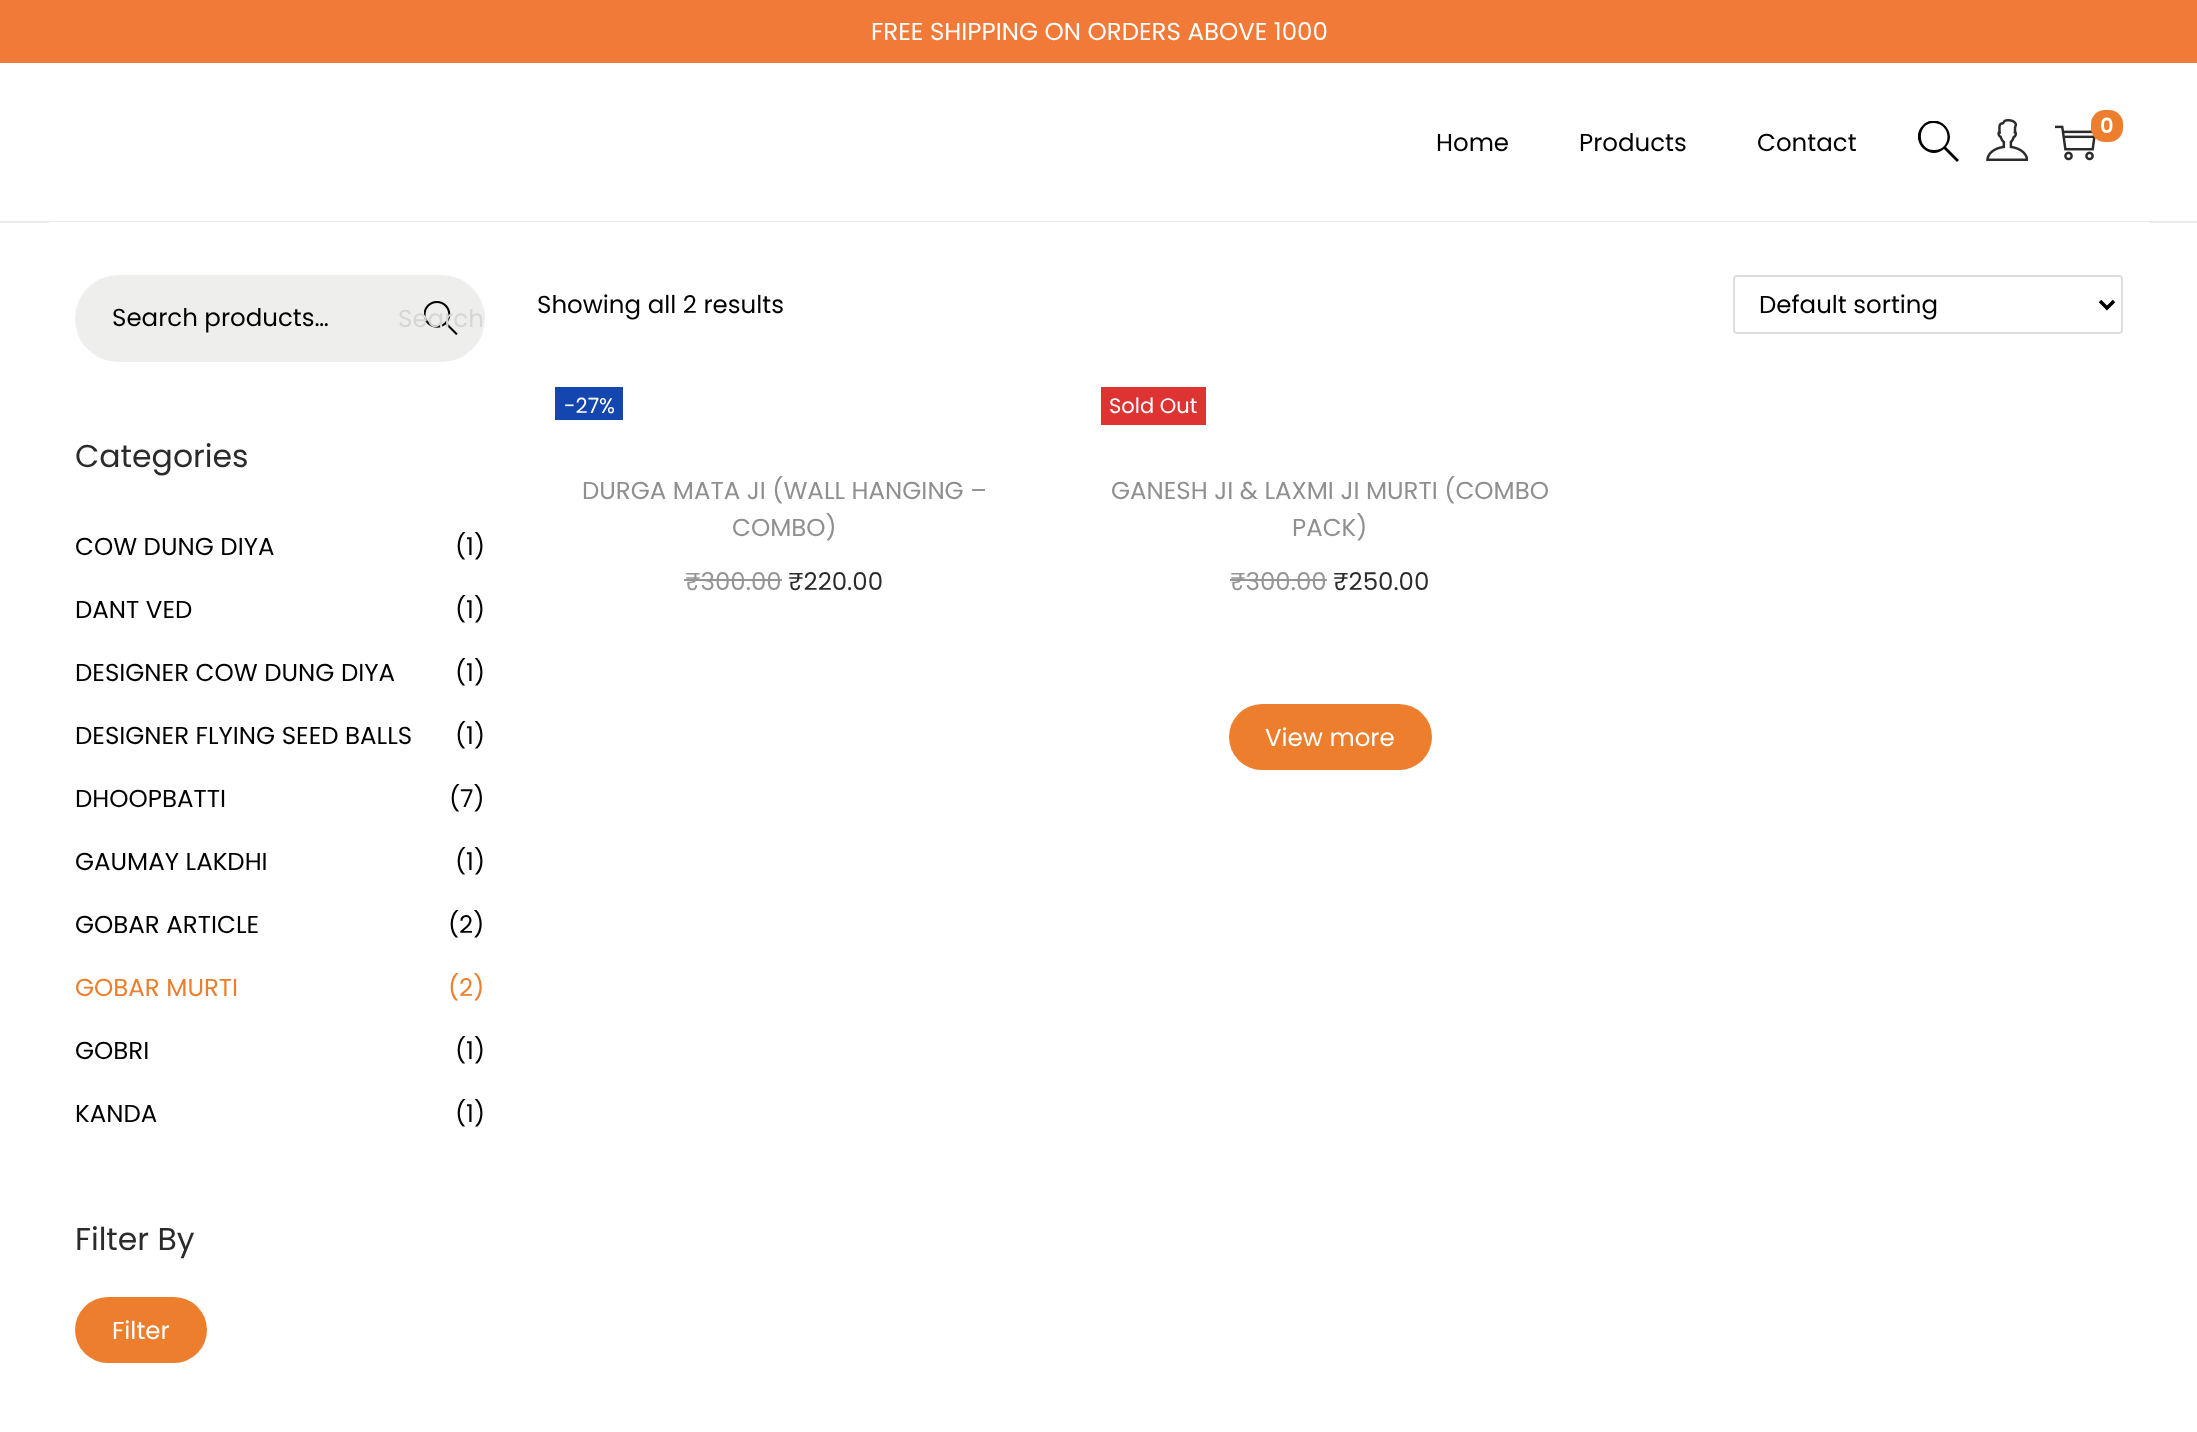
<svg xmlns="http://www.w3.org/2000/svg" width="2197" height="1432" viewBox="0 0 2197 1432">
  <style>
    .t1 { font: 24.5px Poppins; fill: #fff; }
    .t2 { font: 600 21px Poppins; fill: #fff; }
    .t3 { font: 24.5px Poppins; fill: #000; }
    .t4 { font: 24.5px Poppins; fill: #d6d6d4; }
    .t5 { font: 31.5px Poppins; fill: #2b2b2b; }
    .t6 { font: 24.5px Poppins; fill: #ec7e2d; }
    .t7 { font: 21px Poppins; fill: #fff; }
    .t8 { font: 24.5px Poppins; fill: #8f8f8f; }
    .t9 { font: 24.5px Poppins; fill: #959595; }
    .t10 { font: 24.5px Poppins; fill: #2b2b2b; }
  </style>
  <defs>
    <clipPath id="clip1"><rect x="1918" y="121" width="42" height="42"/></clipPath>
  </defs>
  <rect width="100%" height="100%" fill="#fff"/>
  <rect x="0" y="0" width="2197" height="63" fill="#f17a39"/>
  <text x="871" y="40" class="t1">FREE SHIPPING ON ORDERS ABOVE 1000</text>
  <rect x="0" y="221" width="2197" height="2" fill="#eaeaea"/>
  <g clip-path="url(#clip1)">
    <path d="M1959 160L1946 147C1959 132 1937 111 1923 125C1908 140 1929 162 1944 149L1957 162ZM1934 150C1916 150 1917 122 1934 123C1952 124 1952 150 1934 150Z" fill="#000"/>
  </g>
  <image x="1986" y="119" width="42" height="42" href="images/1.png"/>
  <image x="2055" y="125" width="41" height="36" href="images/2.png"/>
  <rect x="2091" y="110" width="32" height="32" rx="14" fill="#ec7e2d"/>
  <text x="2100" y="133" class="t2">0</text>
  <text x="1436" y="151" class="t3">Home</text>
  <text x="1579" y="151" class="t3">Products</text>
  <text x="1757" y="151" class="t3">Contact</text>
  <rect x="49" y="222" width="2100" height="1" fill="#fff"/>
  <rect x="75" y="275" width="410" height="87" rx="43.5" fill="#eeeeec"/>
  <text x="112" y="326" class="t3">Search products…</text>
  <image x="424" y="301" width="34" height="34" href="images/3.png"/>
  <text x="398" y="327" class="t4">Search</text>
  <text x="75" y="467" class="t5">Categories</text>
  <text x="75" y="555" class="t3">COW DUNG DIYA</text>
  <text x="455" y="555" class="t3">(1)</text>
  <text x="75" y="618" class="t3">DANT VED</text>
  <text x="455" y="618" class="t3">(1)</text>
  <text x="75" y="681" class="t3">DESIGNER COW DUNG DIYA</text>
  <text x="455" y="681" class="t3">(1)</text>
  <text x="75" y="744" class="t3">DESIGNER FLYING SEED BALLS</text>
  <text x="455" y="744" class="t3">(1)</text>
  <text x="75" y="807" class="t3">DHOOPBATTI</text>
  <text x="449" y="807" class="t3">(7)</text>
  <text x="75" y="870" class="t3">GAUMAY LAKDHI</text>
  <text x="455" y="870" class="t3">(1)</text>
  <text x="75" y="933" class="t3">GOBAR ARTICLE</text>
  <text x="448" y="933" class="t3">(2)</text>
  <text x="75" y="996" class="t6">GOBAR MURTI</text>
  <text x="448" y="996" class="t6">(2)</text>
  <text x="75" y="1059" class="t3">GOBRI</text>
  <text x="455" y="1059" class="t3">(1)</text>
  <text x="75" y="1122" class="t3">KANDA</text>
  <text x="455" y="1122" class="t3">(1)</text>
  <text x="75" y="1250" class="t5">Filter By</text>
  <rect x="75" y="1297" width="132" height="66" rx="33" fill="#ec7e2d"/>
  <text x="112" y="1339" class="t1">Filter</text>
  <text x="537" y="313" class="t3">Showing all 2 results</text>
  <rect x="1734" y="276" width="388" height="57" rx="3" fill="none" stroke="#ddd" stroke-width="2"/>
  <path d="M2100 301L2107 308L2114 301" fill="none" stroke="#000" stroke-width="3.5"/>
  <text x="1759" y="313" class="t3">Default sorting</text>
  <rect x="555" y="387" width="68" height="33" fill="#1346af"/>
  <text x="564" y="413" class="t7">-27%</text>
  <text x="582" y="499" class="t8">DURGA MATA JI (WALL HANGING –</text>
  <text x="732" y="536" class="t8">COMBO)</text>
  <text x="685" y="590" class="t9">₹300.00</text>
  <rect x="684" y="579" width="98" height="2" fill="#959595"/>
  <text x="788" y="590" class="t10">₹220.00</text>
  <rect x="1101" y="387" width="105" height="38" fill="#d33"/>
  <text x="1109" y="413" class="t7">Sold Out</text>
  <text x="1111" y="499" class="t8">GANESH JI &amp; LAXMI JI MURTI (COMBO</text>
  <text x="1292" y="536" class="t8">PACK)</text>
  <text x="1230" y="590" class="t9">₹300.00</text>
  <rect x="1230" y="579" width="97" height="2" fill="#959595"/>
  <text x="1333" y="590" class="t10">₹250.00</text>
  <rect x="1229" y="704" width="203" height="66" rx="33" fill="#ec7e2d"/>
  <text x="1265" y="746" class="t1">View more</text>
</svg>
